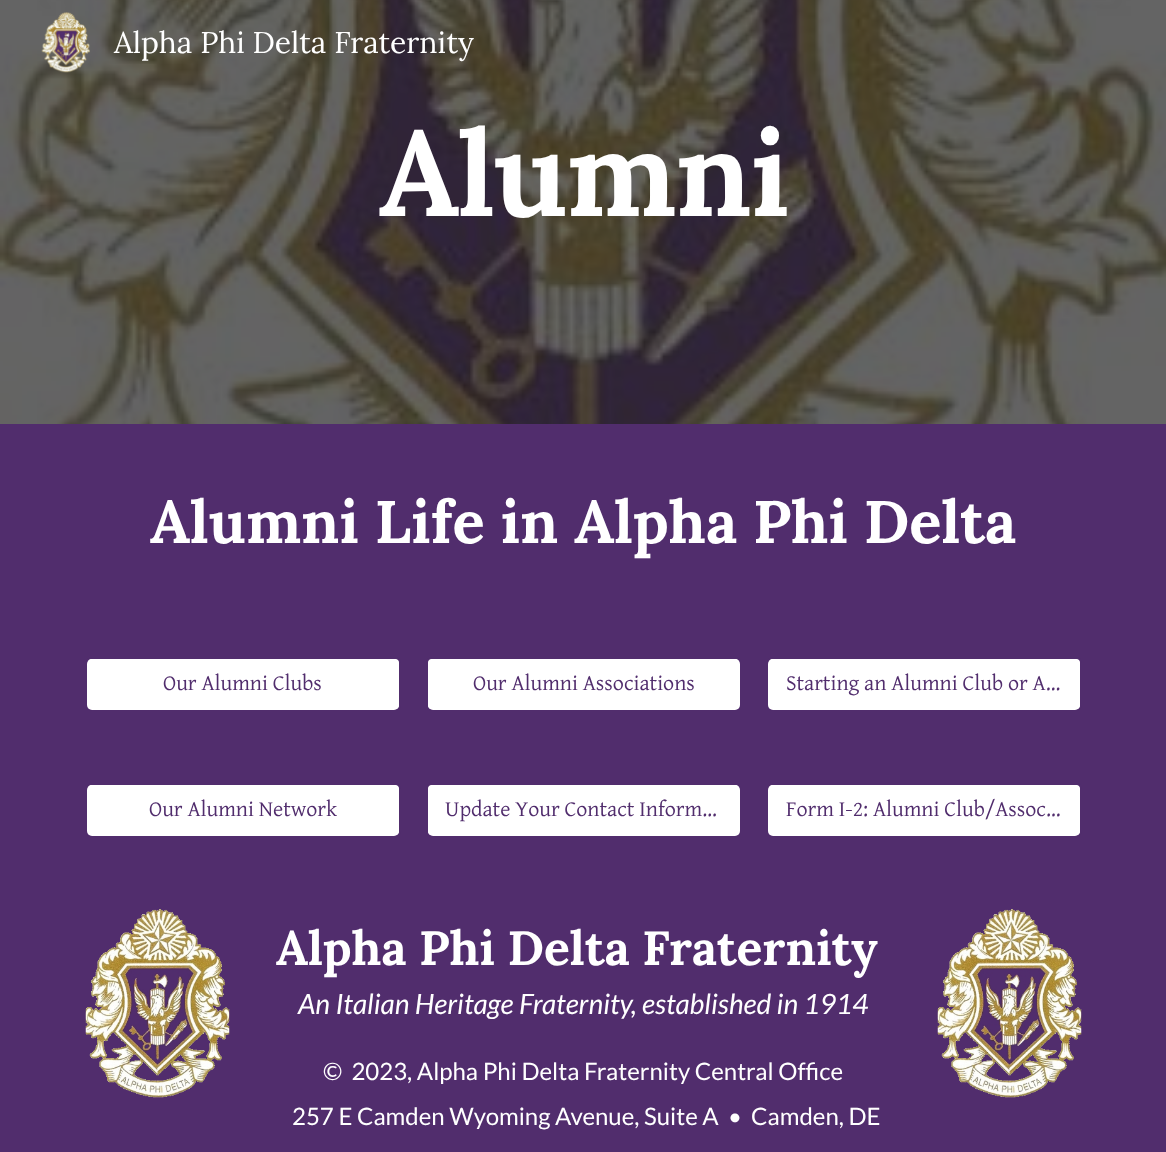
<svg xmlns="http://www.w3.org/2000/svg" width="1166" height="1152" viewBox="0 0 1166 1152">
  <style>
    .t1 { font: 30px Lora; fill: #fff; }
    .t2 { font: bold 120px Lora; letter-spacing: -1.5px; fill: #fff; }
    .t3 { font: bold 60px Lora; fill: #fff; }
    .t4 { font: 22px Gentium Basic; fill: #512d6d; }
    .t5 { font: bold 48px Lora; fill: #fff; }
    .t6 { font: italic 28px Lato; fill: #fff; }
    .t7 { font: 24px Lato; fill: #fff; }
  </style>
  <rect width="100%" height="100%" fill="#512d6d"/>
  <image x="0" y="0" width="1166" height="424" href="images/2.png"/>
  <image x="41" y="12" width="49" height="61" href="images/1.png"/>
  <text x="114" y="53" class="t1">Alpha Phi Delta Fraternity</text>
  <text x="379" y="216" class="t2">Alumni</text>
  <text x="150" y="543" class="t3">Alumni Life in Alpha Phi Delta</text>
  <rect x="87" y="658" width="313" height="52" rx="5" fill="#fff" stroke="#512d6d" stroke-width="2"/>
  <rect x="87" y="659" width="312" height="51" rx="5" fill="#fff"/>
  <text x="163" y="690" class="t4">Our Alumni Clubs</text>
  <rect x="427" y="658" width="313" height="52" rx="5" fill="#fff" stroke="#512d6d" stroke-width="2"/>
  <rect x="428" y="659" width="312" height="51" rx="5" fill="#fff"/>
  <text x="473" y="690" class="t4">Our Alumni Associations</text>
  <rect x="768" y="658" width="313" height="52" rx="5" fill="#fff" stroke="#512d6d" stroke-width="2"/>
  <rect x="768" y="659" width="312" height="51" rx="5" fill="#fff"/>
  <text x="786" y="690" class="t4">Starting an Alumni Club or A…</text>
  <rect x="87" y="784" width="313" height="52" rx="5" fill="#fff" stroke="#512d6d" stroke-width="2"/>
  <rect x="87" y="785" width="312" height="51" rx="5" fill="#fff"/>
  <text x="149" y="816" class="t4">Our Alumni Network</text>
  <rect x="427" y="784" width="313" height="52" rx="5" fill="#fff" stroke="#512d6d" stroke-width="2"/>
  <rect x="428" y="785" width="312" height="51" rx="5" fill="#fff"/>
  <text x="445" y="816" class="t4">Update Your Contact Inform…</text>
  <rect x="768" y="784" width="313" height="52" rx="5" fill="#fff" stroke="#512d6d" stroke-width="2"/>
  <rect x="768" y="785" width="312" height="51" rx="5" fill="#fff"/>
  <text x="786" y="816" class="t4">Form I-2: Alumni Club/Assoc…</text>
  <image x="85" y="909" width="145" height="189" href="images/3.png"/>
  <text x="276" y="965" class="t5">Alpha Phi Delta Fraternity</text>
  <text x="298" y="1014" class="t6">An Italian Heritage Fraternity, established in 1914</text>
  <text x="323" y="1080" class="t7" xml:space="preserve">©  2023, Alpha Phi Delta Fraternity Central Office</text>
  <text x="292" y="1125" class="t7" xml:space="preserve">257 E Camden Wyoming Avenue, Suite A  •  Camden, DE</text>
  <image x="937" y="909" width="145" height="189" href="images/4.png"/>
</svg>
